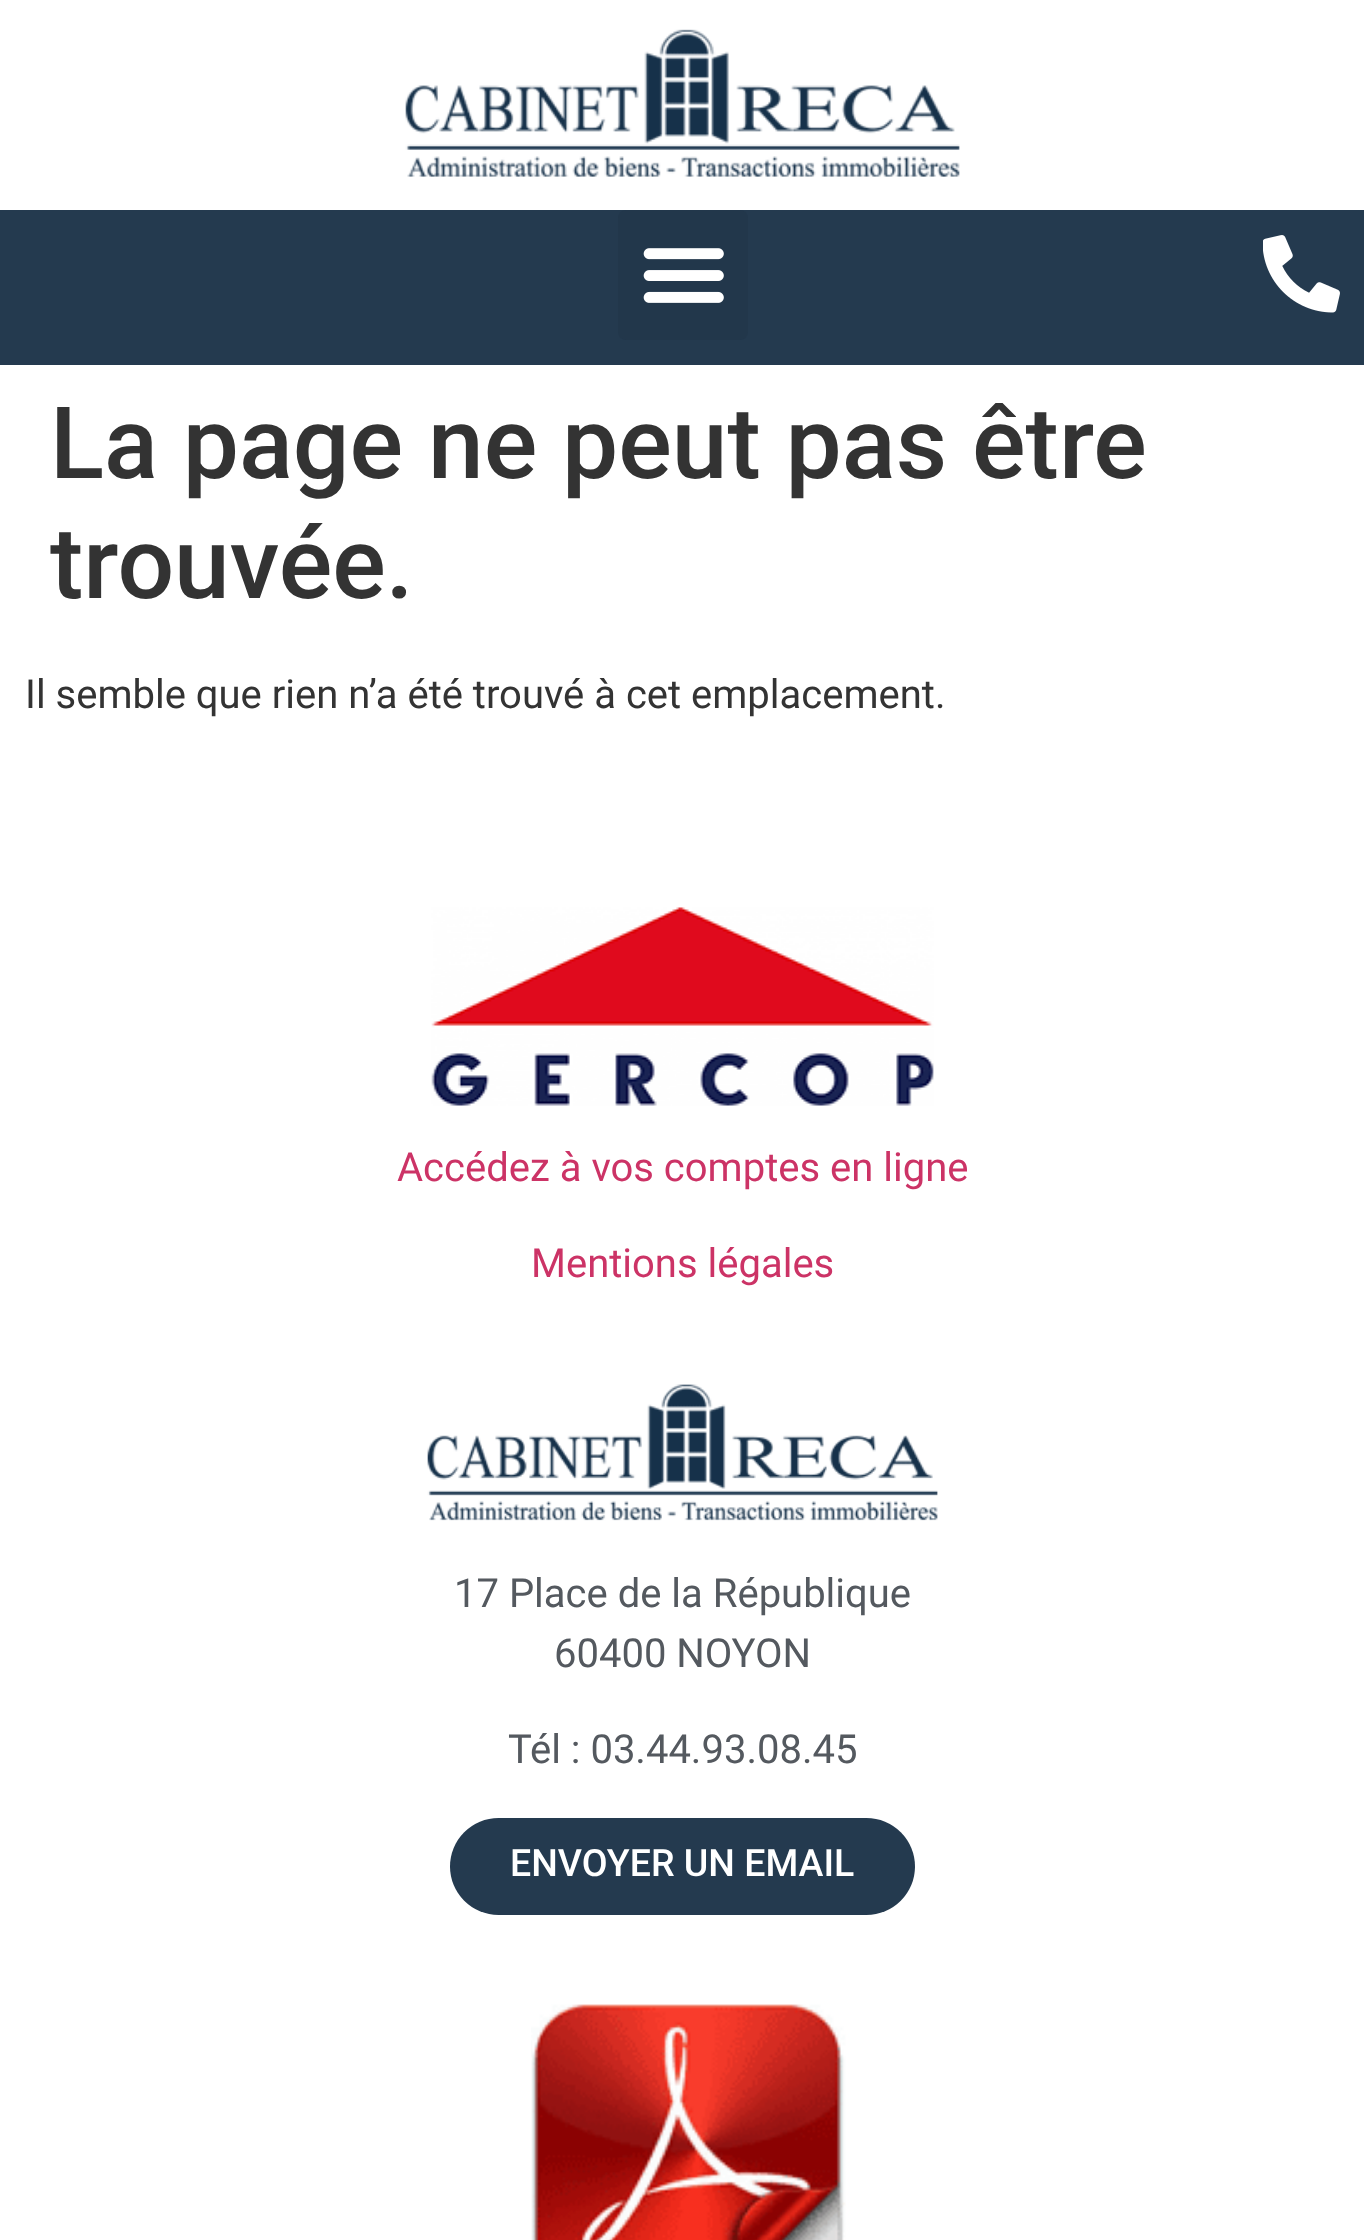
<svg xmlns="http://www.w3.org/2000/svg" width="1364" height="2240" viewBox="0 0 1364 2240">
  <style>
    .t1 { font: 500 100px Roboto; fill: #333; }
    .t2 { font: 40px Roboto; fill: #333; }
    .t3 { font: 40px Roboto; fill: #c36; }
    .t4 { font: 40px Roboto; fill: #54595f; }
    .t5 { font: 500 37.5px Roboto; fill: #fff; }
  </style>
  <rect width="100%" height="100%" fill="#fff"/>
  <image x="405" y="29" width="555" height="148" href="images/1.png"/>
  <rect x="0" y="210" width="1364" height="155" fill="#243a4f"/>
  <rect x="618" y="210" width="130" height="130" rx="8" fill="#22374b"/>
  <image x="643" y="248" width="81" height="55" href="images/2.png"/>
  <image x="1263" y="235" width="77" height="78" href="images/3.png"/>
  <text x="50" y="478" class="t1">La page ne peut pas être</text>
  <text x="50" y="598" class="t1">trouvée.</text>
  <text x="25" y="708" class="t2">Il semble que rien n’a été trouvé à cet emplacement.</text>
  <image x="431" y="907" width="503" height="199" href="images/4.png"/>
  <text x="397" y="1181" class="t3">Accédez à vos comptes en ligne</text>
  <text x="531" y="1277" class="t3">Mentions légales</text>
  <image x="427" y="1384" width="511" height="137" href="images/5.png"/>
  <text x="454" y="1607" class="t4">17 Place de la République</text>
  <text x="554" y="1667" class="t4">60400 NOYON</text>
  <text x="508" y="1763" class="t4">Tél : 03.44.93.08.45</text>
  <rect x="450" y="1818" width="465" height="97" rx="48.5" fill="#243a4f"/>
  <text x="510" y="1876" class="t5">ENVOYER UN EMAIL</text>
  <image x="531" y="2004" width="315" height="236" href="images/6.png"/>
</svg>
